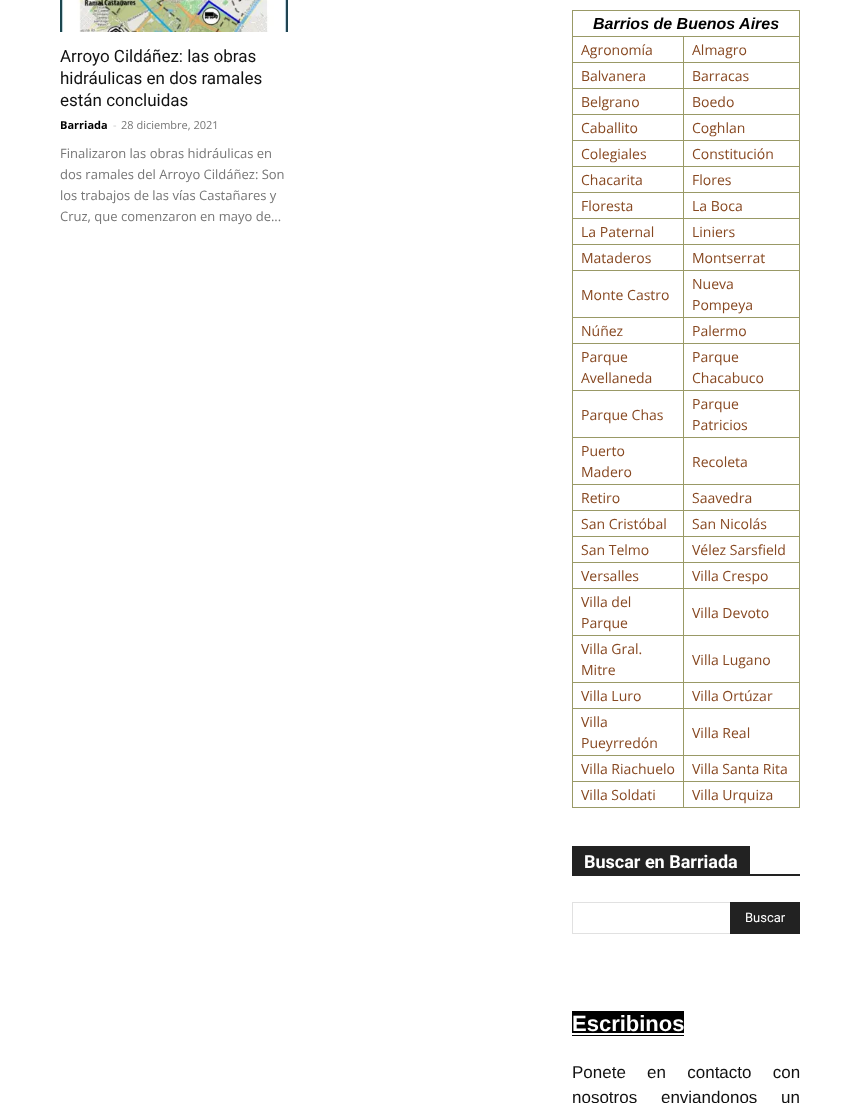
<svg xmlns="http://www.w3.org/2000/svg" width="860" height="1103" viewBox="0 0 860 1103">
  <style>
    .t1 { font: 17px Roboto; fill: #111; }
    .t2 { font: bold 11px Open Sans; fill: #000; }
    .t3 { font: 11px Open Sans; fill: #ccc; }
    .t4 { font: 11px Open Sans; fill: #767676; }
    .t5 { font: 13px Open Sans; fill: #767676; }
    .t6 { font: italic bold 16px Liberation Sans; fill: #000; }
    .t7 { font: 14px Open Sans; fill: #874821; }
    .t8 { font: bold 18px Roboto; fill: #fff; }
    .t9 { font: 13px Roboto; fill: #fff; }
    .t10 { font: bold 22px Liberation Sans; fill: #fff; }
    .t11 { font: 17px Liberation Sans; fill: #111; }
  </style>
  <rect width="100%" height="100%" fill="#fff"/>
  <image x="60" y="0" width="228" height="32" href="images/1.png"/>
  <text x="60" y="62" class="t1">Arroyo Cildáñez: las obras</text>
  <text x="60" y="84" class="t1">hidráulicas en dos ramales</text>
  <text x="60" y="106" class="t1">están concluidas</text>
  <text x="60" y="129" class="t2">Barriada</text>
  <text x="113" y="129" class="t3">-</text>
  <text x="121" y="129" class="t4">28 diciembre, 2021</text>
  <text x="60" y="158" class="t5">Finalizaron las obras hidráulicas en</text>
  <text x="60" y="179" class="t5">dos ramales del Arroyo Cildáñez: Son</text>
  <text x="60" y="200" class="t5">los trabajos de las vías Castañares y</text>
  <text x="60" y="221" class="t5">Cruz, que comenzaron en mayo de...</text>
  <rect x="572" y="10" width="228" height="1" fill="#996"/>
  <rect x="683" y="36" width="117" height="1" fill="#996"/>
  <rect x="683" y="62" width="117" height="1" fill="#996"/>
  <rect x="683" y="88" width="117" height="1" fill="#996"/>
  <rect x="683" y="114" width="117" height="1" fill="#996"/>
  <rect x="683" y="140" width="117" height="1" fill="#996"/>
  <rect x="683" y="166" width="117" height="1" fill="#996"/>
  <rect x="683" y="192" width="117" height="1" fill="#996"/>
  <rect x="683" y="218" width="117" height="1" fill="#996"/>
  <rect x="683" y="244" width="117" height="1" fill="#996"/>
  <rect x="683" y="270" width="117" height="1" fill="#996"/>
  <rect x="683" y="317" width="117" height="1" fill="#996"/>
  <rect x="683" y="343" width="117" height="1" fill="#996"/>
  <rect x="683" y="390" width="117" height="1" fill="#996"/>
  <rect x="683" y="437" width="117" height="1" fill="#996"/>
  <rect x="683" y="484" width="117" height="1" fill="#996"/>
  <rect x="683" y="510" width="117" height="1" fill="#996"/>
  <rect x="683" y="536" width="117" height="1" fill="#996"/>
  <rect x="683" y="562" width="117" height="1" fill="#996"/>
  <rect x="683" y="588" width="117" height="1" fill="#996"/>
  <rect x="683" y="635" width="117" height="1" fill="#996"/>
  <rect x="683" y="682" width="117" height="1" fill="#996"/>
  <rect x="683" y="708" width="117" height="1" fill="#996"/>
  <rect x="683" y="755" width="117" height="1" fill="#996"/>
  <rect x="683" y="781" width="117" height="1" fill="#996"/>
  <rect x="799" y="781" width="1" height="27" fill="#996"/>
  <rect x="799" y="755" width="1" height="27" fill="#996"/>
  <rect x="799" y="708" width="1" height="48" fill="#996"/>
  <rect x="799" y="682" width="1" height="27" fill="#996"/>
  <rect x="799" y="635" width="1" height="48" fill="#996"/>
  <rect x="799" y="588" width="1" height="48" fill="#996"/>
  <rect x="799" y="562" width="1" height="27" fill="#996"/>
  <rect x="799" y="536" width="1" height="27" fill="#996"/>
  <rect x="799" y="510" width="1" height="27" fill="#996"/>
  <rect x="799" y="484" width="1" height="27" fill="#996"/>
  <rect x="799" y="437" width="1" height="48" fill="#996"/>
  <rect x="799" y="390" width="1" height="48" fill="#996"/>
  <rect x="799" y="343" width="1" height="48" fill="#996"/>
  <rect x="799" y="317" width="1" height="27" fill="#996"/>
  <rect x="799" y="270" width="1" height="48" fill="#996"/>
  <rect x="799" y="244" width="1" height="27" fill="#996"/>
  <rect x="799" y="218" width="1" height="27" fill="#996"/>
  <rect x="799" y="192" width="1" height="27" fill="#996"/>
  <rect x="799" y="166" width="1" height="27" fill="#996"/>
  <rect x="799" y="140" width="1" height="27" fill="#996"/>
  <rect x="799" y="114" width="1" height="27" fill="#996"/>
  <rect x="799" y="88" width="1" height="27" fill="#996"/>
  <rect x="799" y="62" width="1" height="27" fill="#996"/>
  <rect x="799" y="36" width="1" height="27" fill="#996"/>
  <rect x="799" y="10" width="1" height="27" fill="#996"/>
  <rect x="683" y="807" width="117" height="1" fill="#996"/>
  <rect x="683" y="781" width="1" height="27" fill="#996"/>
  <rect x="572" y="781" width="112" height="1" fill="#996"/>
  <rect x="683" y="755" width="1" height="27" fill="#996"/>
  <rect x="572" y="755" width="112" height="1" fill="#996"/>
  <rect x="683" y="708" width="1" height="48" fill="#996"/>
  <rect x="572" y="708" width="112" height="1" fill="#996"/>
  <rect x="683" y="682" width="1" height="27" fill="#996"/>
  <rect x="572" y="682" width="112" height="1" fill="#996"/>
  <rect x="683" y="635" width="1" height="48" fill="#996"/>
  <rect x="572" y="635" width="112" height="1" fill="#996"/>
  <rect x="683" y="588" width="1" height="48" fill="#996"/>
  <rect x="572" y="588" width="112" height="1" fill="#996"/>
  <rect x="683" y="562" width="1" height="27" fill="#996"/>
  <rect x="572" y="562" width="112" height="1" fill="#996"/>
  <rect x="683" y="536" width="1" height="27" fill="#996"/>
  <rect x="572" y="536" width="112" height="1" fill="#996"/>
  <rect x="683" y="510" width="1" height="27" fill="#996"/>
  <rect x="572" y="510" width="112" height="1" fill="#996"/>
  <rect x="683" y="484" width="1" height="27" fill="#996"/>
  <rect x="572" y="484" width="112" height="1" fill="#996"/>
  <rect x="683" y="437" width="1" height="48" fill="#996"/>
  <rect x="572" y="437" width="112" height="1" fill="#996"/>
  <rect x="683" y="390" width="1" height="48" fill="#996"/>
  <rect x="572" y="390" width="112" height="1" fill="#996"/>
  <rect x="683" y="343" width="1" height="48" fill="#996"/>
  <rect x="572" y="343" width="112" height="1" fill="#996"/>
  <rect x="683" y="317" width="1" height="27" fill="#996"/>
  <rect x="572" y="317" width="112" height="1" fill="#996"/>
  <rect x="683" y="270" width="1" height="48" fill="#996"/>
  <rect x="572" y="270" width="112" height="1" fill="#996"/>
  <rect x="683" y="244" width="1" height="27" fill="#996"/>
  <rect x="572" y="244" width="112" height="1" fill="#996"/>
  <rect x="683" y="218" width="1" height="27" fill="#996"/>
  <rect x="572" y="218" width="112" height="1" fill="#996"/>
  <rect x="683" y="192" width="1" height="27" fill="#996"/>
  <rect x="572" y="192" width="112" height="1" fill="#996"/>
  <rect x="683" y="166" width="1" height="27" fill="#996"/>
  <rect x="572" y="166" width="112" height="1" fill="#996"/>
  <rect x="683" y="140" width="1" height="27" fill="#996"/>
  <rect x="572" y="140" width="112" height="1" fill="#996"/>
  <rect x="683" y="114" width="1" height="27" fill="#996"/>
  <rect x="572" y="114" width="112" height="1" fill="#996"/>
  <rect x="683" y="88" width="1" height="27" fill="#996"/>
  <rect x="572" y="88" width="112" height="1" fill="#996"/>
  <rect x="683" y="62" width="1" height="27" fill="#996"/>
  <rect x="572" y="62" width="112" height="1" fill="#996"/>
  <rect x="683" y="36" width="1" height="27" fill="#996"/>
  <rect x="572" y="36" width="112" height="1" fill="#996"/>
  <rect x="572" y="807" width="112" height="1" fill="#996"/>
  <rect x="572" y="781" width="1" height="27" fill="#996"/>
  <rect x="572" y="755" width="1" height="27" fill="#996"/>
  <rect x="572" y="708" width="1" height="48" fill="#996"/>
  <rect x="572" y="682" width="1" height="27" fill="#996"/>
  <rect x="572" y="635" width="1" height="48" fill="#996"/>
  <rect x="572" y="588" width="1" height="48" fill="#996"/>
  <rect x="572" y="562" width="1" height="27" fill="#996"/>
  <rect x="572" y="536" width="1" height="27" fill="#996"/>
  <rect x="572" y="510" width="1" height="27" fill="#996"/>
  <rect x="572" y="484" width="1" height="27" fill="#996"/>
  <rect x="572" y="437" width="1" height="48" fill="#996"/>
  <rect x="572" y="390" width="1" height="48" fill="#996"/>
  <rect x="572" y="343" width="1" height="48" fill="#996"/>
  <rect x="572" y="317" width="1" height="27" fill="#996"/>
  <rect x="572" y="270" width="1" height="48" fill="#996"/>
  <rect x="572" y="244" width="1" height="27" fill="#996"/>
  <rect x="572" y="218" width="1" height="27" fill="#996"/>
  <rect x="572" y="192" width="1" height="27" fill="#996"/>
  <rect x="572" y="166" width="1" height="27" fill="#996"/>
  <rect x="572" y="140" width="1" height="27" fill="#996"/>
  <rect x="572" y="114" width="1" height="27" fill="#996"/>
  <rect x="572" y="88" width="1" height="27" fill="#996"/>
  <rect x="572" y="62" width="1" height="27" fill="#996"/>
  <rect x="572" y="36" width="1" height="27" fill="#996"/>
  <rect x="572" y="10" width="1" height="27" fill="#996"/>
  <text x="593" y="29" class="t6">Barrios de Buenos Aires</text>
  <text x="581" y="55" class="t7">Agronomía</text>
  <text x="692" y="55" class="t7">Almagro</text>
  <text x="581" y="81" class="t7">Balvanera</text>
  <text x="692" y="81" class="t7">Barracas</text>
  <text x="581" y="107" class="t7">Belgrano</text>
  <text x="692" y="107" class="t7">Boedo</text>
  <text x="581" y="133" class="t7">Caballito</text>
  <text x="692" y="133" class="t7">Coghlan</text>
  <text x="581" y="159" class="t7">Colegiales</text>
  <text x="692" y="159" class="t7">Constitución</text>
  <text x="581" y="185" class="t7">Chacarita</text>
  <text x="692" y="185" class="t7">Flores</text>
  <text x="581" y="211" class="t7">Floresta</text>
  <text x="692" y="211" class="t7">La Boca</text>
  <text x="581" y="237" class="t7">La Paternal</text>
  <text x="692" y="237" class="t7">Liniers</text>
  <text x="581" y="263" class="t7">Mataderos</text>
  <text x="692" y="263" class="t7">Montserrat</text>
  <text x="581" y="300" class="t7">Monte Castro</text>
  <text x="692" y="289" class="t7">Nueva</text>
  <text x="692" y="310" class="t7">Pompeya</text>
  <text x="581" y="336" class="t7">Núñez</text>
  <text x="692" y="336" class="t7">Palermo</text>
  <text x="581" y="362" class="t7">Parque</text>
  <text x="581" y="383" class="t7">Avellaneda</text>
  <text x="692" y="362" class="t7">Parque</text>
  <text x="692" y="383" class="t7">Chacabuco</text>
  <text x="581" y="420" class="t7">Parque Chas</text>
  <text x="692" y="409" class="t7">Parque</text>
  <text x="692" y="430" class="t7">Patricios</text>
  <text x="581" y="456" class="t7">Puerto</text>
  <text x="581" y="477" class="t7">Madero</text>
  <text x="692" y="467" class="t7">Recoleta</text>
  <text x="581" y="503" class="t7">Retiro</text>
  <text x="692" y="503" class="t7">Saavedra</text>
  <text x="581" y="529" class="t7">San Cristóbal</text>
  <text x="692" y="529" class="t7">San Nicolás</text>
  <text x="581" y="555" class="t7">San Telmo</text>
  <text x="692" y="555" class="t7">Vélez Sarsfield</text>
  <text x="581" y="581" class="t7">Versalles</text>
  <text x="692" y="581" class="t7">Villa Crespo</text>
  <text x="581" y="607" class="t7">Villa del</text>
  <text x="581" y="628" class="t7">Parque</text>
  <text x="692" y="618" class="t7">Villa Devoto</text>
  <text x="581" y="654" class="t7">Villa Gral.</text>
  <text x="581" y="675" class="t7">Mitre</text>
  <text x="692" y="665" class="t7">Villa Lugano</text>
  <text x="581" y="701" class="t7">Villa Luro</text>
  <text x="692" y="701" class="t7">Villa Ortúzar</text>
  <text x="581" y="727" class="t7">Villa</text>
  <text x="581" y="748" class="t7">Pueyrredón</text>
  <text x="692" y="738" class="t7">Villa Real</text>
  <text x="581" y="774" class="t7">Villa Riachuelo</text>
  <text x="692" y="774" class="t7">Villa Santa Rita</text>
  <text x="581" y="800" class="t7">Villa Soldati</text>
  <text x="692" y="800" class="t7">Villa Urquiza</text>
  <rect x="572" y="874" width="228" height="2" fill="#222"/>
  <rect x="572" y="846" width="178" height="28" fill="#222"/>
  <text x="584" y="868" class="t8">Buscar en Barriada</text>
  <rect x="572" y="902" width="158" height="1" fill="#e1e1e1"/>
  <rect x="572" y="933" width="158" height="1" fill="#e1e1e1"/>
  <rect x="572" y="902" width="1" height="32" fill="#e1e1e1"/>
  <rect x="730" y="902" width="70" height="32" fill="#222"/>
  <text x="745" y="922" class="t9">Buscar</text>
  <rect x="572" y="1011" width="112" height="25" fill="#000"/>
  <text x="572" y="1031" class="t10">Escribinos</text>
  <rect x="572" y="1033" width="112" height="2" fill="#fff"/>
  <text x="572" y="1078" word-spacing="16.5" class="t11">Ponete en contacto con</text>
  <text x="572" y="1103" word-spacing="19" class="t11">nosotros enviandonos un</text>
</svg>
